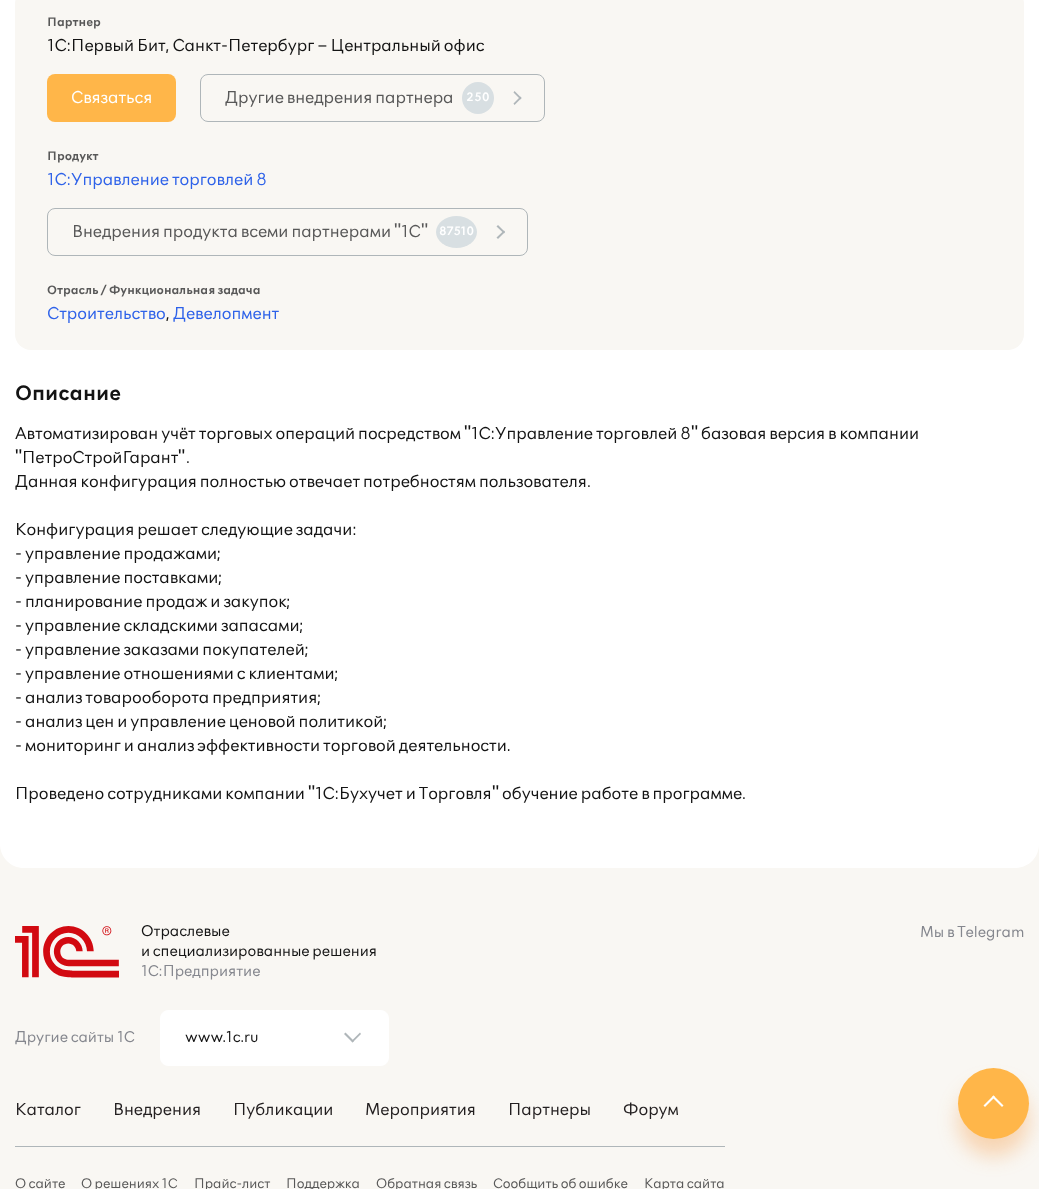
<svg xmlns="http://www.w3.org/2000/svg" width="1039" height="1189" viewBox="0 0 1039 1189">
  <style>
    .t1 { font: 600 14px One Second; fill: #585858; }
    .t2 { font: 20px One Second; fill: #141414; }
    .t3 { font: 20px One Second; fill: #fff; }
    .t4 { font: 20px One Second; fill: #585858; }
    .t5 { font: 600 14px One Second; fill: #fff; }
    .t6 { font: 20px One Second; fill: #2e62e9; }
    .t7 { font: 20px Liberation Sans; fill: #585858; }
    .t8 { font: 600 24px One Second; fill: #141414; }
    .t9 { font: 20px Liberation Sans; fill: #141414; }
    .t10 { font: 18px One Second; fill: #141414; }
    .t11 { font: 18px One Second; fill: #85878e; }
    .t12 { font: 20px One Second; fill: #231f20; }
    .t13 { font: 16px One Second; fill: #585858; }
  </style>
  <rect width="100%" height="100%" fill="#f9f7f3"/>
  <path d="M0-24H1039V844C1039 857.5 1028.5 868 1015 868H24C10.5 868 0 857.5 0 844Z" fill="#fff"/>
  <rect x="15" y="-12" width="1009" height="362" rx="16" fill="#f9f7f3"/>
  <text x="47" y="26" class="t1">Партнер</text>
  <text x="47" y="51" class="t2">1С:Первый Бит, Санкт-Петербург – Центральный офис</text>
  <rect x="47" y="74" width="129" height="48" rx="8" fill="#ffb649"/>
  <text x="71" y="103" class="t3">Связаться</text>
  <rect x="200.5" y="74.5" width="344" height="47" rx="7.5" fill="none" stroke="#afb6b9"/>
  <text x="225" y="103" class="t4">Другие внедрения партнера</text>
  <circle cx="478" cy="98" r="16" fill="#d8dfe2"/>
  <text x="466" y="101" class="t5">250</text>
  <path d="M514.5 91L521.5 98L520.5 99.5L513.5 92.5Z" fill="#afb6b9"/>
  <path d="M520.5 96.5L521.5 98L514.5 105L513.5 103.5Z" fill="#afb6b9"/>
  <text x="47" y="160" class="t1">Продукт</text>
  <text x="47" y="185" class="t6">1С:Управление торговлей 8</text>
  <rect x="47.5" y="208.5" width="480" height="47" rx="7.5" fill="none" stroke="#afb6b9"/>
  <text x="72" y="237" class="t4">Внедрения продукта всеми партнерами</text>
  <text x="394" y="237" class="t7">"</text>
  <text x="401" y="237" class="t4">1С</text>
  <text x="421" y="237" class="t7">"</text>
  <ellipse cx="456.5" cy="232" rx="20.5" ry="16" fill="#d8dfe2"/>
  <text x="439" y="235" class="t5">87510</text>
  <path d="M498 225L505 232L504 233.5L496.5 226.5Z" fill="#afb6b9"/>
  <path d="M504 230.5L505 232L498 239L496.5 237.5Z" fill="#afb6b9"/>
  <text x="47" y="294" class="t1">Отрасль / Функциональная задача</text>
  <text x="47" y="319" class="t6">Строительство</text>
  <text x="166" y="319" class="t2">,</text>
  <text x="173" y="319" class="t6">Девелопмент</text>
  <text x="15" y="400" class="t8">Описание</text>
  <text x="15" y="439" class="t2">Автоматизирован учёт торговых операций посредством</text>
  <text x="464" y="439" class="t9">"</text>
  <text x="471" y="439" class="t2">1С:Управление торговлей 8</text>
  <text x="691" y="439" class="t9">"</text>
  <text x="701" y="439" class="t2">базовая версия в компании</text>
  <text x="15" y="463" class="t9">"</text>
  <text x="22" y="463" class="t2">ПетроСтройГарант</text>
  <text x="178" y="463" class="t9">"</text>
  <text x="186" y="463" class="t2">.</text>
  <text x="15" y="487" class="t2">Данная конфигурация полностью отвечает потребностям пользователя.</text>
  <text x="15" y="535" class="t2">Конфигурация решает следующие задачи:</text>
  <text x="15" y="559" class="t2">- управление продажами;</text>
  <text x="15" y="583" class="t2">- управление поставками;</text>
  <text x="15" y="607" class="t2">- планирование продаж и закупок;</text>
  <text x="15" y="631" class="t2">- управление складскими запасами;</text>
  <text x="15" y="655" class="t2">- управление заказами покупателей;</text>
  <text x="15" y="679" class="t2">- управление отношениями с клиентами;</text>
  <text x="15" y="703" class="t2">- анализ товарооборота предприятия;</text>
  <text x="15" y="727" class="t2">- анализ цен и управление ценовой политикой;</text>
  <text x="15" y="751" class="t2">- мониторинг и анализ эффективности торговой деятельности.</text>
  <text x="15" y="799" class="t2">Проведено сотрудниками компании</text>
  <text x="308" y="799" class="t9">"</text>
  <text x="315" y="799" class="t2">1С:Бухучет и Торговля</text>
  <text x="492" y="799" class="t9">"</text>
  <text x="502" y="799" class="t2">обучение работе в программе.</text>
  <image x="15" y="926" width="104" height="52" href="images/1.png"/>
  <text x="141" y="936" class="t10">Отраслевые</text>
  <text x="141" y="956" class="t10">и специализированные решения</text>
  <text x="141" y="976" class="t11">1С:Предприятие</text>
  <text x="920" y="937" class="t11">Мы в Telegram</text>
  <text x="15" y="1042" class="t11">Другие сайты 1С</text>
  <rect x="160.5" y="1010.5" width="228" height="55" rx="7.5" fill="#fff" stroke="#fff"/>
  <text x="185" y="1042" class="t10">www.1c.ru</text>
  <path d="M360 1032.5L361 1034L352.5 1042.5L351.5 1041Z" fill="#afb6b9"/>
  <path d="M345.5 1032.5L354 1041L352.5 1042.5L344 1034Z" fill="#afb6b9"/>
  <text x="15" y="1115" class="t12">Каталог</text>
  <text x="113" y="1115" class="t12">Внедрения</text>
  <text x="233" y="1115" class="t12">Публикации</text>
  <text x="365" y="1115" class="t12">Мероприятия</text>
  <text x="508" y="1115" class="t12">Партнеры</text>
  <text x="623" y="1115" class="t12">Форум</text>
  <rect x="15" y="1146" width="710" height="1" fill="#afb6b9"/>
  <text x="15" y="1188" class="t13">О сайте</text>
  <text x="81" y="1188" class="t13">О решениях 1С</text>
  <text x="194" y="1188" class="t13">Прайс-лист</text>
  <text x="286" y="1188" class="t13">Поддержка</text>
  <text x="376" y="1188" class="t13">Обратная связь</text>
  <text x="493" y="1188" class="t13">Сообщить об ошибке</text>
  <text x="644" y="1188" class="t13">Карта сайта</text>
  <rect x="958" y="1085" width="71" height="71" rx="35.5" fill="#f583194d" filter="blur(10px)"/>
  <circle cx="993.5" cy="1103.5" r="35.5" fill="#ffb649"/>
  <path d="M985 1107L983.5 1105.5L993.5 1095.5L995 1097Z" fill="#fff"/>
  <path d="M1002 1107L992 1097L993.5 1095.5L1003.5 1105.5Z" fill="#fff"/>
</svg>
